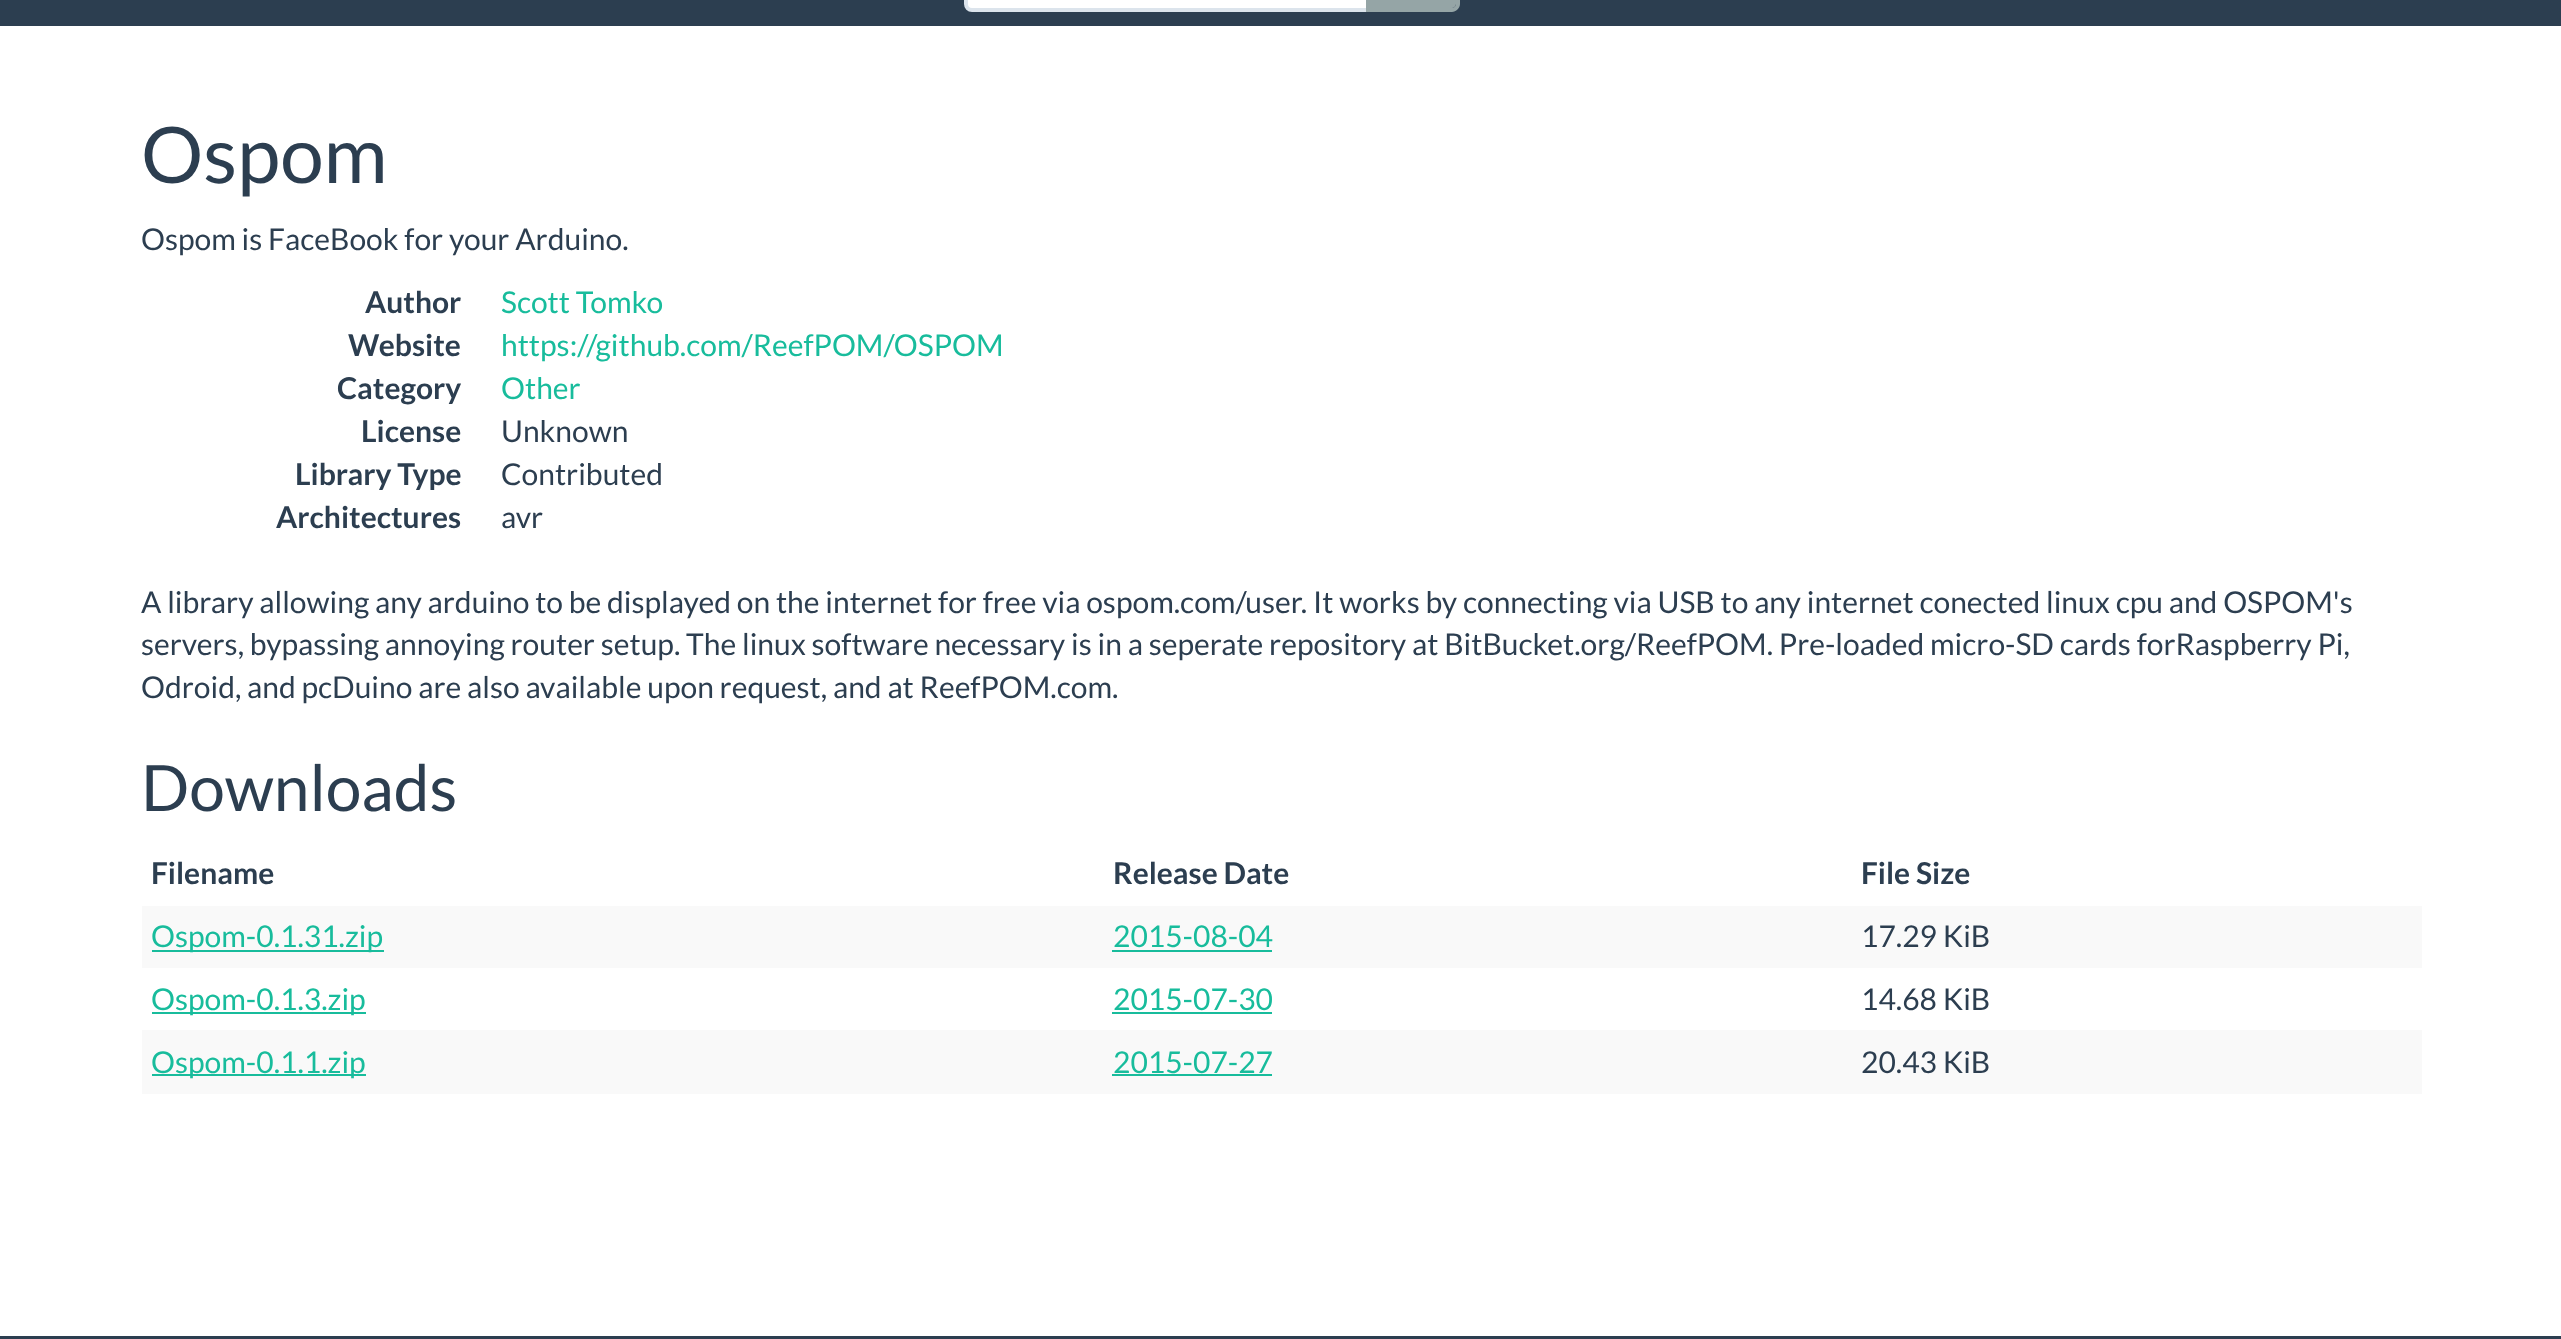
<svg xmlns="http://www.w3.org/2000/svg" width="2561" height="1339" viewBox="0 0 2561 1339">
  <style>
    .t1 { font: 78px Lato; fill: #2c3e50; }
    .t2 { font: 30px Lato; fill: #2c3e50; }
    .t3 { font: bold 30px Lato; fill: #2c3e50; }
    .t4 { font: 30px Lato; fill: #18bc9c; }
    .t5 { font: 64px Lato; fill: #2c3e50; }
  </style>
  <rect width="100%" height="100%" fill="#fff"/>
  <rect x="0" y="0" width="2561" height="26" fill="#2c3e50"/>
  <path d="M972-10H1370V10H972C968.5 10 966 7.5 966 4V-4C966-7.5 968.5-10 972-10Z" fill="#fff" stroke="#dce4ec" stroke-width="4"/>
  <path d="M1366-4H1452C1454-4 1456-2 1456 0V4C1456 6 1454 8 1452 8H1366Z" fill="#95a5a6"/>
  <path d="M1366-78H1452C1456-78 1460-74 1460-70V4C1460 8 1456 12 1452 12H1366ZM1366-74H1452C1454-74 1456-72 1456-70V4C1456 6 1454 8 1452 8H1366Z" fill="#95a5a6" fill-rule="evenodd"/>
  <text x="141" y="183" class="t1">Ospom</text>
  <text x="141" y="250" class="t2">Ospom is FaceBook for your Arduino.</text>
  <text x="365" y="313" class="t3">Author</text>
  <text x="501" y="313" class="t4">Scott Tomko</text>
  <text x="348" y="356" class="t3">Website</text>
  <text x="501" y="356" class="t4">https://github.com/ReefPOM/OSPOM</text>
  <text x="337" y="399" class="t3">Category</text>
  <text x="501" y="399" class="t4">Other</text>
  <text x="361" y="442" class="t3">License</text>
  <text x="501" y="442" class="t2">Unknown</text>
  <text x="295" y="485" class="t3">Library Type</text>
  <text x="501" y="485" class="t2">Contributed</text>
  <text x="276" y="528" class="t3">Architectures</text>
  <text x="501" y="528" class="t2">avr</text>
  <text x="141" y="613" class="t2">A library allowing any arduino to be displayed on the internet for free via ospom.com/user. It works by connecting via USB to any internet conected linux cpu and OSPOM's</text>
  <text x="141" y="655" class="t2">servers, bypassing annoying router setup. The linux software necessary is in a seperate repository at BitBucket.org/ReefPOM. Pre-loaded micro-SD cards forRaspberry Pi,</text>
  <text x="141" y="698" class="t2">Odroid, and pcDuino are also available upon request, and at ReefPOM.com.</text>
  <text x="141" y="811" class="t5">Downloads</text>
  <text x="151" y="884" class="t3">Filename</text>
  <text x="1113" y="884" class="t3">Release Date</text>
  <text x="1861" y="884" class="t3">File Size</text>
  <rect x="142" y="906" width="2280" height="62" fill="#f9f9f9"/>
  <rect x="152" y="950" width="232" height="2" fill="#18bc9c"/>
  <text x="151" y="947" class="t4">Ospom-0.1.31.zip</text>
  <text x="1113" y="947" class="t4">2015-08-04</text>
  <rect x="1112" y="950" width="160" height="2" fill="#18bc9c"/>
  <text x="1861" y="947" class="t2">17.29 KiB</text>
  <rect x="152" y="1012" width="214" height="2" fill="#18bc9c"/>
  <text x="151" y="1010" class="t4">Ospom-0.1.3.zip</text>
  <text x="1113" y="1010" class="t4">2015-07-30</text>
  <rect x="1112" y="1012" width="160" height="2" fill="#18bc9c"/>
  <text x="1861" y="1010" class="t2">14.68 KiB</text>
  <rect x="142" y="1030" width="2280" height="64" fill="#f9f9f9"/>
  <rect x="152" y="1074" width="214" height="2" fill="#18bc9c"/>
  <text x="151" y="1073" class="t4">Ospom-0.1.1.zip</text>
  <text x="1113" y="1073" class="t4">2015-07-27</text>
  <rect x="1112" y="1074" width="160" height="2" fill="#18bc9c"/>
  <text x="1861" y="1073" class="t2">20.43 KiB</text>
  <rect x="0" y="1336" width="2561" height="3" fill="#2c3e50"/>
</svg>
